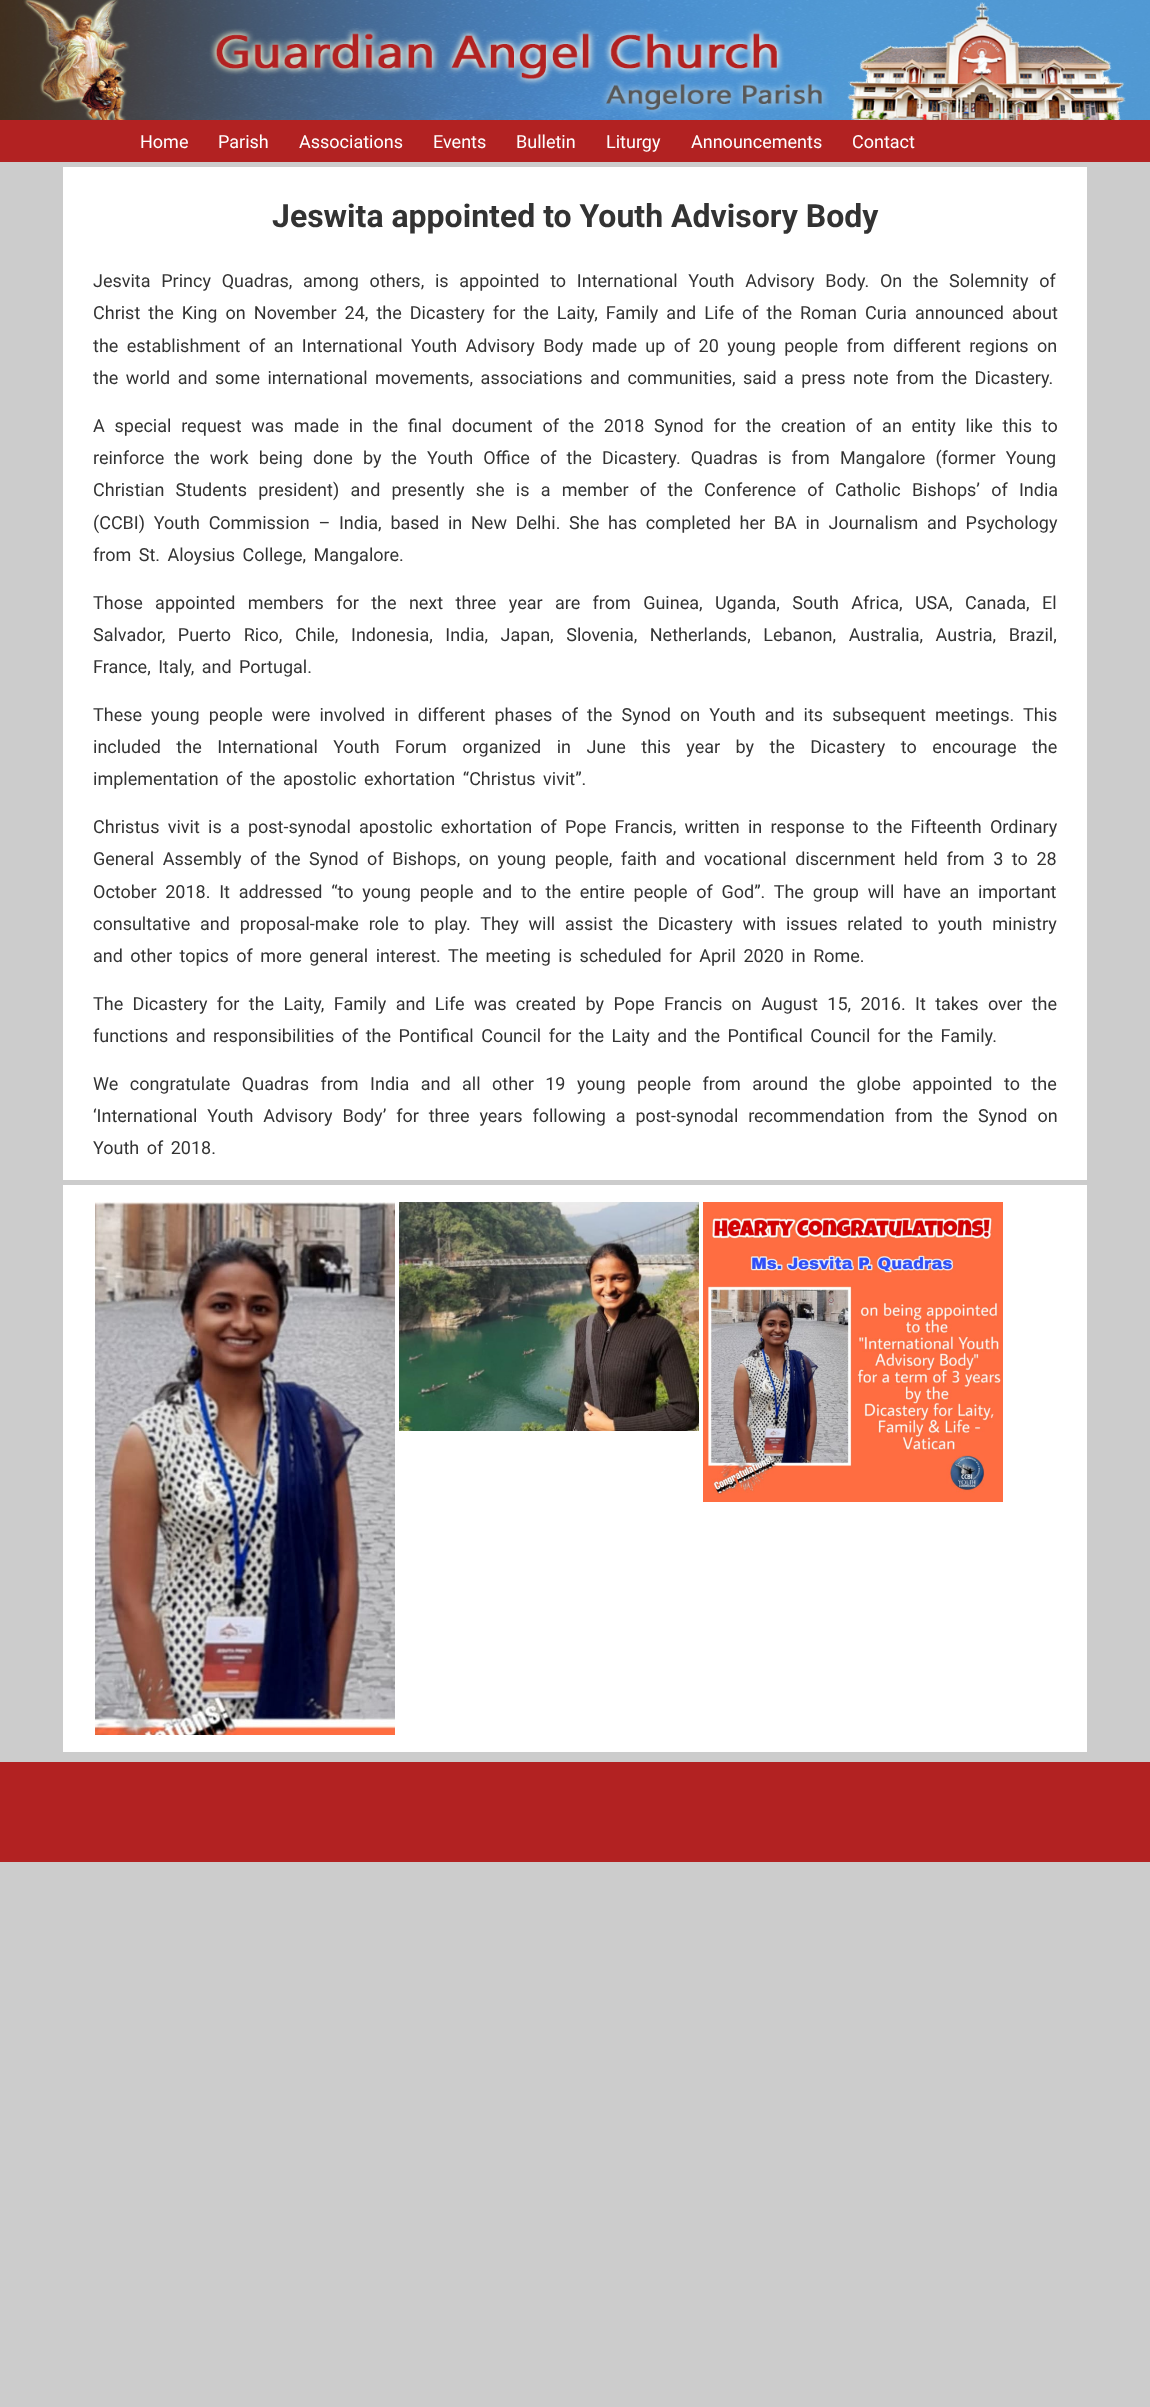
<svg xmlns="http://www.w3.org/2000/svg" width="1150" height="2407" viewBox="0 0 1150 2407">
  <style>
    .t1 { font: 18px Roboto; fill: #fff; }
    .t2 { font: bold 32px Roboto; fill: #333; }
    .t3 { font: 18px Roboto; fill: #333; }
  </style>
  <rect width="100%" height="100%" fill="#ccc"/>
  <rect x="0" y="120" width="1150" height="42" fill="#b22222"/>
  <image x="0" y="0" width="1150" height="120" href="images/1.png"/>
  <text x="140" y="148" class="t1">Home</text>
  <text x="218" y="148" class="t1">Parish</text>
  <text x="299" y="148" class="t1">Associations</text>
  <text x="433" y="148" class="t1">Events</text>
  <text x="516" y="148" class="t1">Bulletin</text>
  <text x="606" y="148" class="t1">Liturgy</text>
  <text x="691" y="148" class="t1">Announcements</text>
  <text x="852" y="148" class="t1">Contact</text>
  <rect x="63" y="167" width="1024" height="1013" fill="#fff"/>
  <text x="272" y="227" class="t2">Jeswita appointed to Youth Advisory Body</text>
  <text x="93" y="287" word-spacing="6.25" class="t3">Jesvita Princy Quadras, among others, is appointed to International Youth Advisory Body. On the Solemnity of</text>
  <text x="93" y="319" word-spacing="3.6" class="t3">Christ the King on November 24, the Dicastery for the Laity, Family and Life of the Roman Curia announced about</text>
  <text x="93" y="352" word-spacing="3.9" class="t3">the establishment of an International Youth Advisory Body made up of 20 young people from different regions on</text>
  <text x="93" y="384" word-spacing="3" class="t3">the world and some international movements, associations and communities, said a press note from the Dicastery.</text>
  <text x="93" y="432" word-spacing="5.3" class="t3">A special request was made in the final document of the 2018 Synod for the creation of an entity like this to</text>
  <text x="93" y="464" word-spacing="5.6" class="t3">reinforce the work being done by the Youth Office of the Dicastery. Quadras is from Mangalore (former Young</text>
  <text x="93" y="496" word-spacing="6.75" class="t3">Christian Students president) and presently she is a member of the Conference of Catholic Bishops’ of India</text>
  <text x="93" y="529" word-spacing="4.25" class="t3">(CCBI) Youth Commission – India, based in New Delhi. She has completed her BA in Journalism and Psychology</text>
  <text x="93" y="561" word-spacing="3" class="t3">from St. Aloysius College, Mangalore.</text>
  <text x="93" y="609" word-spacing="7.9" class="t3">Those appointed members for the next three year are from Guinea, Uganda, South Africa, USA, Canada, El</text>
  <text x="93" y="641" word-spacing="8.1" class="t3">Salvador, Puerto Rico, Chile, Indonesia, India, Japan, Slovenia, Netherlands, Lebanon, Australia, Austria, Brazil,</text>
  <text x="93" y="673" word-spacing="3" class="t3">France, Italy, and Portugal.</text>
  <text x="93" y="721" word-spacing="4.6" class="t3">These young people were involved in different phases of the Synod on Youth and its subsequent meetings. This</text>
  <text x="93" y="753" word-spacing="11" class="t3">included the International Youth Forum organized in June this year by the Dicastery to encourage the</text>
  <text x="93" y="785" word-spacing="3" class="t3">implementation of the apostolic exhortation “Christus vivit”.</text>
  <text x="93" y="833" word-spacing="3.75" class="t3">Christus vivit is a post-synodal apostolic exhortation of Pope Francis, written in response to the Fifteenth Ordinary</text>
  <text x="93" y="865" word-spacing="4.1" class="t3">General Assembly of the Synod of Bishops, on young people, faith and vocational discernment held from 3 to 28</text>
  <text x="93" y="898" word-spacing="4.25" class="t3">October 2018. It addressed “to young people and to the entire people of God”. The group will have an important</text>
  <text x="93" y="930" word-spacing="5.3" class="t3">consultative and proposal-make role to play. They will assist the Dicastery with issues related to youth ministry</text>
  <text x="93" y="962" word-spacing="3" class="t3">and other topics of more general interest. The meeting is scheduled for April 2020 in Rome.</text>
  <text x="93" y="1010" word-spacing="4.9" class="t3">The Dicastery for the Laity, Family and Life was created by Pope Francis on August 15, 2016. It takes over the</text>
  <text x="93" y="1042" word-spacing="3" class="t3">functions and responsibilities of the Pontifical Council for the Laity and the Pontifical Council for the Family.</text>
  <text x="93" y="1090" word-spacing="7" class="t3">We congratulate Quadras from India and all other 19 young people from around the globe appointed to the</text>
  <text x="93" y="1122" word-spacing="5.4" class="t3">‘International Youth Advisory Body’ for three years following a post-synodal recommendation from the Synod on</text>
  <text x="93" y="1154" word-spacing="3" class="t3">Youth of 2018.</text>
  <rect x="63" y="1185" width="1024" height="567" fill="#fff"/>
  <image x="95" y="1202" width="300" height="533" href="images/2.png"/>
  <image x="399" y="1202" width="300" height="229" href="images/3.png"/>
  <image x="703" y="1202" width="300" height="300" href="images/4.png"/>
  <rect x="0" y="1762" width="1150" height="100" fill="#b22222"/>
</svg>
